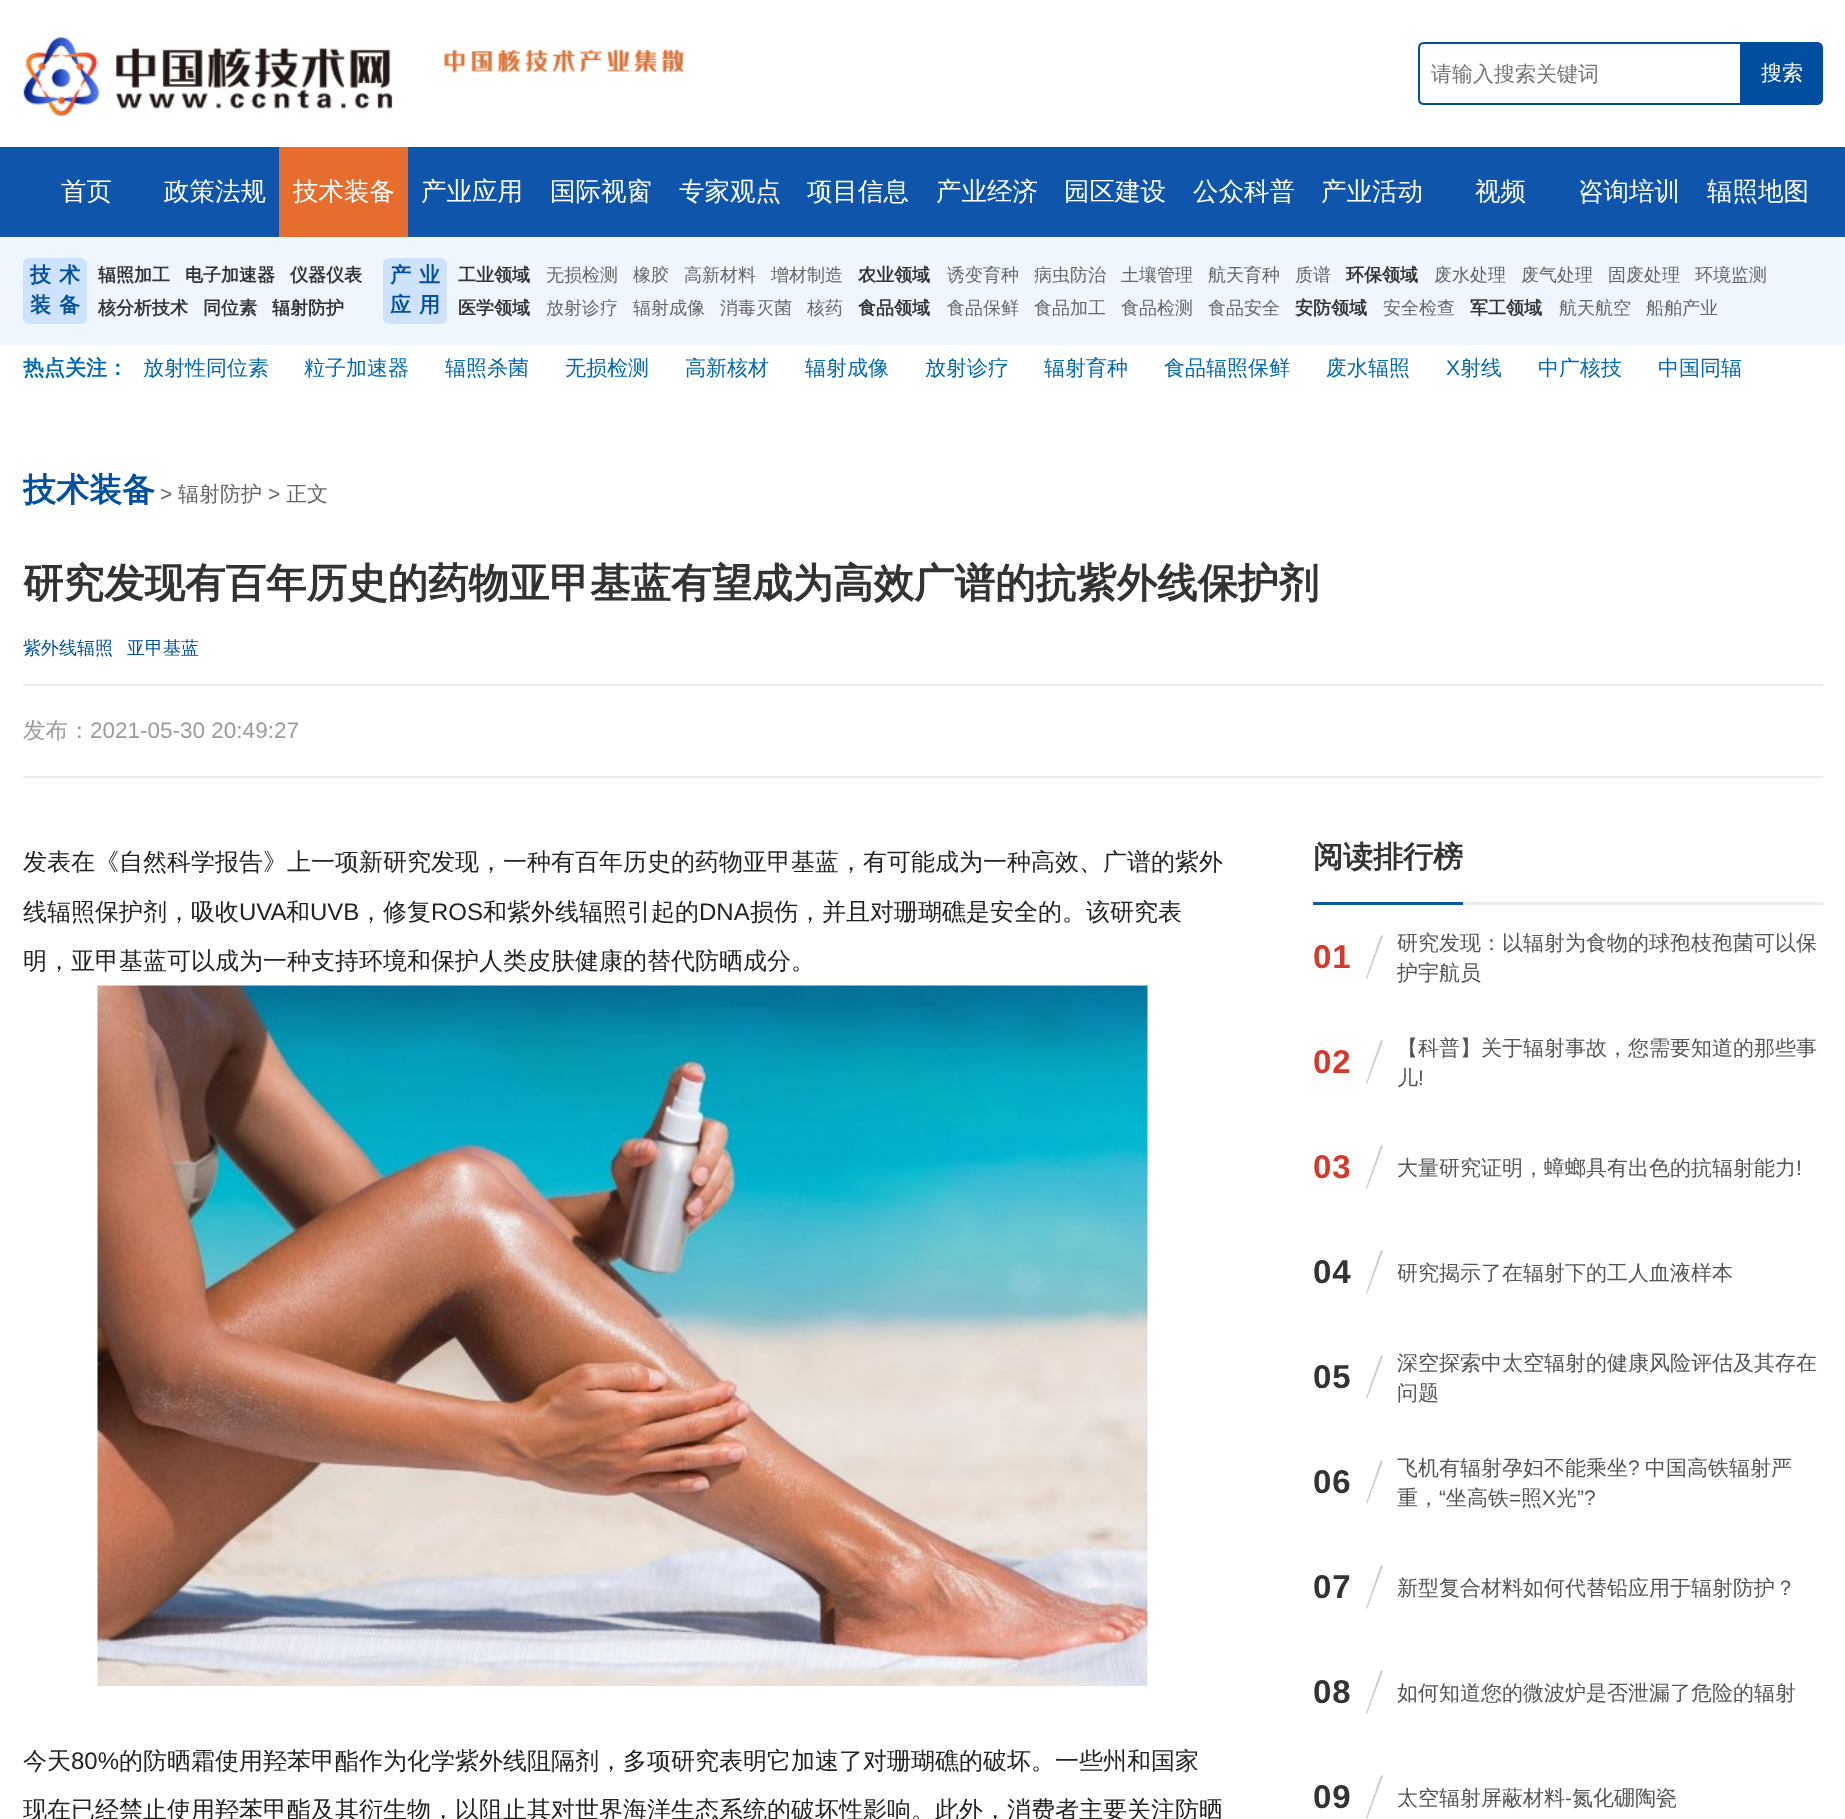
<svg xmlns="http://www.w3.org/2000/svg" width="1845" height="1819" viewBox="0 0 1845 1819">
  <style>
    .t1 { font: 500 21px WenQuanYi Zen Hei; fill: #757575; }
    .t2 { font: 500 21px WenQuanYi Zen Hei; fill: #fff; }
    .t3 { font: 500 25.5px WenQuanYi Zen Hei; fill: #fff; }
    .t4 { font: bold 21px WenQuanYi Zen Hei; letter-spacing: 8px; fill: #014fa0; }
    .t5 { font: bold 18px WenQuanYi Zen Hei; fill: #333; }
    .t6 { font: 500 18px WenQuanYi Zen Hei; fill: #666; }
    .t7 { font: bold 21px WenQuanYi Zen Hei; fill: #0068b6; }
    .t8 { font: 500 21px WenQuanYi Zen Hei; fill: #0068b6; }
    .t9 { font: 21px Liberation Sans; fill: #0068b6; }
    .t10 { font: bold 33px WenQuanYi Zen Hei; fill: #014fa0; }
    .t11 { font: 21px Liberation Sans; fill: #666; }
    .t12 { font: 500 21px WenQuanYi Zen Hei; fill: #666; }
    .t13 { font: bold 40.5px WenQuanYi Zen Hei; fill: #333; }
    .t14 { font: 500 18px WenQuanYi Zen Hei; fill: #014fa0; }
    .t15 { font: 500 22.5px WenQuanYi Zen Hei; fill: #9c9c9c; }
    .t16 { font: 22.5px Liberation Sans; fill: #9c9c9c; }
    .t17 { font: 500 24px WenQuanYi Zen Hei; fill: #222; }
    .t18 { font: 24px Liberation Sans; fill: #222; }
    .t19 { font: bold 30px WenQuanYi Zen Hei; fill: #333; }
    .t20 { font: bold 33px Liberation Sans; letter-spacing: 1px; fill: #d33a2b; }
    .t21 { font: 500 21px WenQuanYi Zen Hei; fill: #555; }
    .t22 { font: 21px Liberation Sans; fill: #555; }
    .t23 { font: bold 33px Liberation Sans; letter-spacing: 1px; fill: #333; }
  </style>
  <defs>
    <clipPath id="clip1"><rect x="1346" y="258" width="436" height="33"/></clipPath>
    <clipPath id="clip2"><rect x="23" y="431" width="1800" height="123"/></clipPath>
    <clipPath id="clip3"><rect x="23" y="837" width="1800" height="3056"/></clipPath>
  </defs>
  <rect width="100%" height="100%" fill="#fff"/>
  <image x="23" y="37" width="370" height="79" href="images/1.png"/>
  <image x="444" y="49" width="241" height="24" href="images/2.png"/>
  <path d="M1424 43H1741V104H1424C1421 104 1419 102 1419 99V48C1419 45 1421 43 1424 43Z" fill="none" stroke="#014ea0" stroke-width="2"/>
  <text x="1431" y="81" class="t1">请输入搜索关键词</text>
  <path d="M1742 42H1817C1820.5 42 1823 44.5 1823 48V99C1823 102.5 1820.5 105 1817 105H1742Z" fill="#014ea0"/>
  <text x="1761" y="80" class="t2">搜索</text>
  <rect x="0" y="147" width="1845" height="90" fill="#0e55ab"/>
  <rect x="279" y="147" width="129" height="90" fill="#e56d2d"/>
  <text x="61" y="200" class="t3">首页</text>
  <text x="164" y="200" class="t3">政策法规</text>
  <text x="293" y="200" class="t3">技术装备</text>
  <text x="421" y="200" class="t3">产业应用</text>
  <text x="550" y="200" class="t3">国际视窗</text>
  <text x="679" y="200" class="t3">专家观点</text>
  <text x="807" y="200" class="t3">项目信息</text>
  <text x="936" y="200" class="t3">产业经济</text>
  <text x="1064" y="200" class="t3">园区建设</text>
  <text x="1193" y="200" class="t3">公众科普</text>
  <text x="1321" y="200" class="t3">产业活动</text>
  <text x="1475" y="200" class="t3">视频</text>
  <text x="1578" y="200" class="t3">咨询培训</text>
  <text x="1707" y="200" class="t3">辐照地图</text>
  <rect x="0" y="237" width="1845" height="108" fill="#eff6fd"/>
  <rect x="23" y="258" width="64" height="66" rx="6" fill="#cfe2fc"/>
  <text x="30" y="282" class="t4">技术</text>
  <text x="30" y="312" class="t4">装备</text>
  <text x="98" y="281" class="t5">辐照加工</text>
  <text x="185" y="281" class="t5">电子加速器</text>
  <text x="290" y="281" class="t5">仪器仪表</text>
  <text x="98" y="314" class="t5">核分析技术</text>
  <text x="203" y="314" class="t5">同位素</text>
  <text x="272" y="314" class="t5">辐射防护</text>
  <rect x="383" y="258" width="64" height="66" rx="6" fill="#cfe2fc"/>
  <text x="390" y="282" class="t4">产业</text>
  <text x="390" y="312" class="t4">应用</text>
  <text x="458" y="281" class="t5">工业领域</text>
  <text x="546" y="281" class="t6">无损检测</text>
  <text x="633" y="281" class="t6">橡胶</text>
  <text x="684" y="281" class="t6">高新材料</text>
  <text x="771" y="281" class="t6">增材制造</text>
  <text x="858" y="281" class="t5">农业领域</text>
  <text x="947" y="281" class="t6">诱变育种</text>
  <text x="1034" y="281" class="t6">病虫防治</text>
  <text x="1121" y="281" class="t6">土壤管理</text>
  <text x="1208" y="281" class="t6">航天育种</text>
  <text x="1295" y="281" class="t6">质谱</text>
  <g clip-path="url(#clip1)">
    <text x="1346" y="281" class="t5">环保领域</text>
  </g>
  <text x="1434" y="281" class="t6">废水处理</text>
  <text x="1521" y="281" class="t6">废气处理</text>
  <text x="1608" y="281" class="t6">固废处理</text>
  <text x="1695" y="281" class="t6">环境监测</text>
  <text x="458" y="314" class="t5">医学领域</text>
  <text x="546" y="314" class="t6">放射诊疗</text>
  <text x="633" y="314" class="t6">辐射成像</text>
  <text x="720" y="314" class="t6">消毒灭菌</text>
  <text x="807" y="314" class="t6">核药</text>
  <text x="858" y="314" class="t5">食品领域</text>
  <text x="947" y="314" class="t6">食品保鲜</text>
  <text x="1034" y="314" class="t6">食品加工</text>
  <text x="1121" y="314" class="t6">食品检测</text>
  <text x="1208" y="314" class="t6">食品安全</text>
  <text x="1295" y="314" class="t5">安防领域</text>
  <text x="1383" y="314" class="t6">安全检查</text>
  <text x="1470" y="314" class="t5">军工领域</text>
  <text x="1559" y="314" class="t6">航天航空</text>
  <text x="1646" y="314" class="t6">船舶产业</text>
  <text x="23" y="375" class="t7">热点关注：</text>
  <text x="143" y="375" class="t8">放射性同位素</text>
  <text x="304" y="375" class="t8">粒子加速器</text>
  <text x="445" y="375" class="t8">辐照杀菌</text>
  <text x="565" y="375" class="t8">无损检测</text>
  <text x="685" y="375" class="t8">高新核材</text>
  <text x="805" y="375" class="t8">辐射成像</text>
  <text x="925" y="375" class="t8">放射诊疗</text>
  <text x="1044" y="375" class="t8">辐射育种</text>
  <text x="1164" y="375" class="t8">食品辐照保鲜</text>
  <text x="1326" y="375" class="t8">废水辐照</text>
  <text x="1446" y="375" class="t9">X</text>
  <text x="1460" y="375" class="t8">射线</text>
  <text x="1538" y="375" class="t8">中广核技</text>
  <text x="1658" y="375" class="t8">中国同辐</text>
  <g clip-path="url(#clip2)">
    <text x="23" y="501" class="t10">技术装备</text>
  </g>
  <text x="160" y="501" class="t11">&gt;</text>
  <text x="178" y="501" class="t12">辐射防护</text>
  <text x="268" y="501" class="t11">&gt;</text>
  <text x="286" y="501" class="t12">正文</text>
  <text x="23" y="597" class="t13">研究发现有百年历史的药物亚甲基蓝有望成为高效广谱的抗紫外线保护剂</text>
  <text x="23" y="654" class="t14">紫外线辐照</text>
  <text x="127" y="654" class="t14">亚甲基蓝</text>
  <rect x="23" y="684" width="1800" height="2" fill="#eaeaea"/>
  <rect x="23" y="776" width="1800" height="2" fill="#eaeaea"/>
  <text x="23" y="738" class="t15">发布：</text>
  <text x="90" y="738" class="t16">2021-05-30 20:49:27</text>
  <text x="23" y="870" class="t17">发表在《自然科学报告》上一项新研究发现，一种有百年历史的药物亚甲基蓝，有可能成为一种高效、广谱的紫外</text>
  <text x="23" y="920" class="t17">线辐照保护剂，吸收</text>
  <text x="239" y="920" class="t18">UVA</text>
  <text x="286" y="920" class="t17">和</text>
  <text x="310" y="920" class="t18">UVB</text>
  <text x="359" y="920" class="t17">，修复</text>
  <text x="431" y="920" class="t18">ROS</text>
  <text x="483" y="920" class="t17">和紫外线辐照引起的</text>
  <text x="699" y="920" class="t18">DNA</text>
  <text x="750" y="920" class="t17">损伤，并且对珊瑚礁是安全的。该研究表</text>
  <text x="23" y="969" class="t17">明，亚甲基蓝可以成为一种支持环境和保护人类皮肤健康的替代防晒成分。</text>
  <image x="97" y="985" width="1051" height="701" href="images/3.png"/>
  <text x="23" y="1769" class="t17">今天</text>
  <text x="71" y="1769" class="t18">80%</text>
  <text x="119" y="1769" class="t17">的防晒霜使用羟苯甲酯作为化学紫外线阻隔剂，多项研究表明它加速了对珊瑚礁的破坏。一些州和国家</text>
  <g clip-path="url(#clip3)">
    <text x="23" y="1818" class="t17">现在已经禁止使用羟苯甲酯及其衍生物，以阻止其对世界海洋生态系统的破坏性影响。此外，消费者主要关注防晒</text>
  </g>
  <rect x="1313" y="902" width="150" height="3" fill="#0d57a4"/>
  <text x="1313" y="867" class="t19">阅读排行榜</text>
  <rect x="1463" y="902" width="360" height="3" fill="#ebebeb"/>
  <text x="1313" y="968" class="t20">01</text>
  <path d="M1381 935L1383 936L1367 979L1366 978Z" fill="#ccc"/>
  <text x="1397" y="950" class="t21">研究发现：以辐射为食物的球孢枝孢菌可以保</text>
  <text x="1397" y="980" class="t21">护宇航员</text>
  <text x="1313" y="1073" class="t20">02</text>
  <path d="M1381 1040L1383 1041L1367 1084L1366 1083Z" fill="#ccc"/>
  <text x="1397" y="1055" class="t21">【科普】关于辐射事故，您需要知道的那些事</text>
  <text x="1397" y="1085" class="t21">儿</text>
  <text x="1418" y="1085" class="t22">!</text>
  <text x="1313" y="1178" class="t20">03</text>
  <path d="M1381 1145L1383 1146L1367 1189L1366 1188Z" fill="#ccc"/>
  <text x="1397" y="1175" class="t21">大量研究证明，蟑螂具有出色的抗辐射能力</text>
  <text x="1796" y="1175" class="t22">!</text>
  <text x="1313" y="1283" class="t23">04</text>
  <path d="M1381 1250L1383 1251L1367 1294L1366 1293Z" fill="#ccc"/>
  <text x="1397" y="1280" class="t21">研究揭示了在辐射下的工人血液样本</text>
  <text x="1313" y="1388" class="t23">05</text>
  <path d="M1381 1355L1383 1356L1367 1399L1366 1398Z" fill="#ccc"/>
  <text x="1397" y="1370" class="t21">深空探索中太空辐射的健康风险评估及其存在</text>
  <text x="1397" y="1400" class="t21">问题</text>
  <text x="1313" y="1493" class="t23">06</text>
  <path d="M1381 1460L1383 1461L1367 1504L1366 1503Z" fill="#ccc"/>
  <text x="1397" y="1475" class="t21">飞机有辐射孕妇不能乘坐</text>
  <text x="1628" y="1475" class="t22">?</text>
  <text x="1645" y="1475" class="t21">中国高铁辐射严</text>
  <text x="1397" y="1505" class="t21">重，</text>
  <text x="1439" y="1505" class="t22">“</text>
  <text x="1446" y="1505" class="t21">坐高铁</text>
  <text x="1509" y="1505" class="t22">=</text>
  <text x="1521" y="1505" class="t21">照</text>
  <text x="1542" y="1505" class="t22">X</text>
  <text x="1556" y="1505" class="t21">光</text>
  <text x="1577" y="1505" class="t22">”?</text>
  <text x="1313" y="1598" class="t23">07</text>
  <path d="M1381 1565L1383 1566L1367 1609L1366 1608Z" fill="#ccc"/>
  <text x="1397" y="1595" class="t21">新型复合材料如何代替铅应用于辐射防护？</text>
  <text x="1313" y="1703" class="t23">08</text>
  <path d="M1381 1670L1383 1671L1367 1714L1366 1713Z" fill="#ccc"/>
  <text x="1397" y="1700" class="t21">如何知道您的微波炉是否泄漏了危险的辐射</text>
  <text x="1313" y="1808" class="t23">09</text>
  <path d="M1381 1775L1383 1776L1367 1819L1366 1818Z" fill="#ccc"/>
  <text x="1397" y="1805" class="t21">太空辐射屏蔽材料</text>
  <text x="1565" y="1805" class="t22">-</text>
  <text x="1572" y="1805" class="t21">氮化硼陶瓷</text>
</svg>
